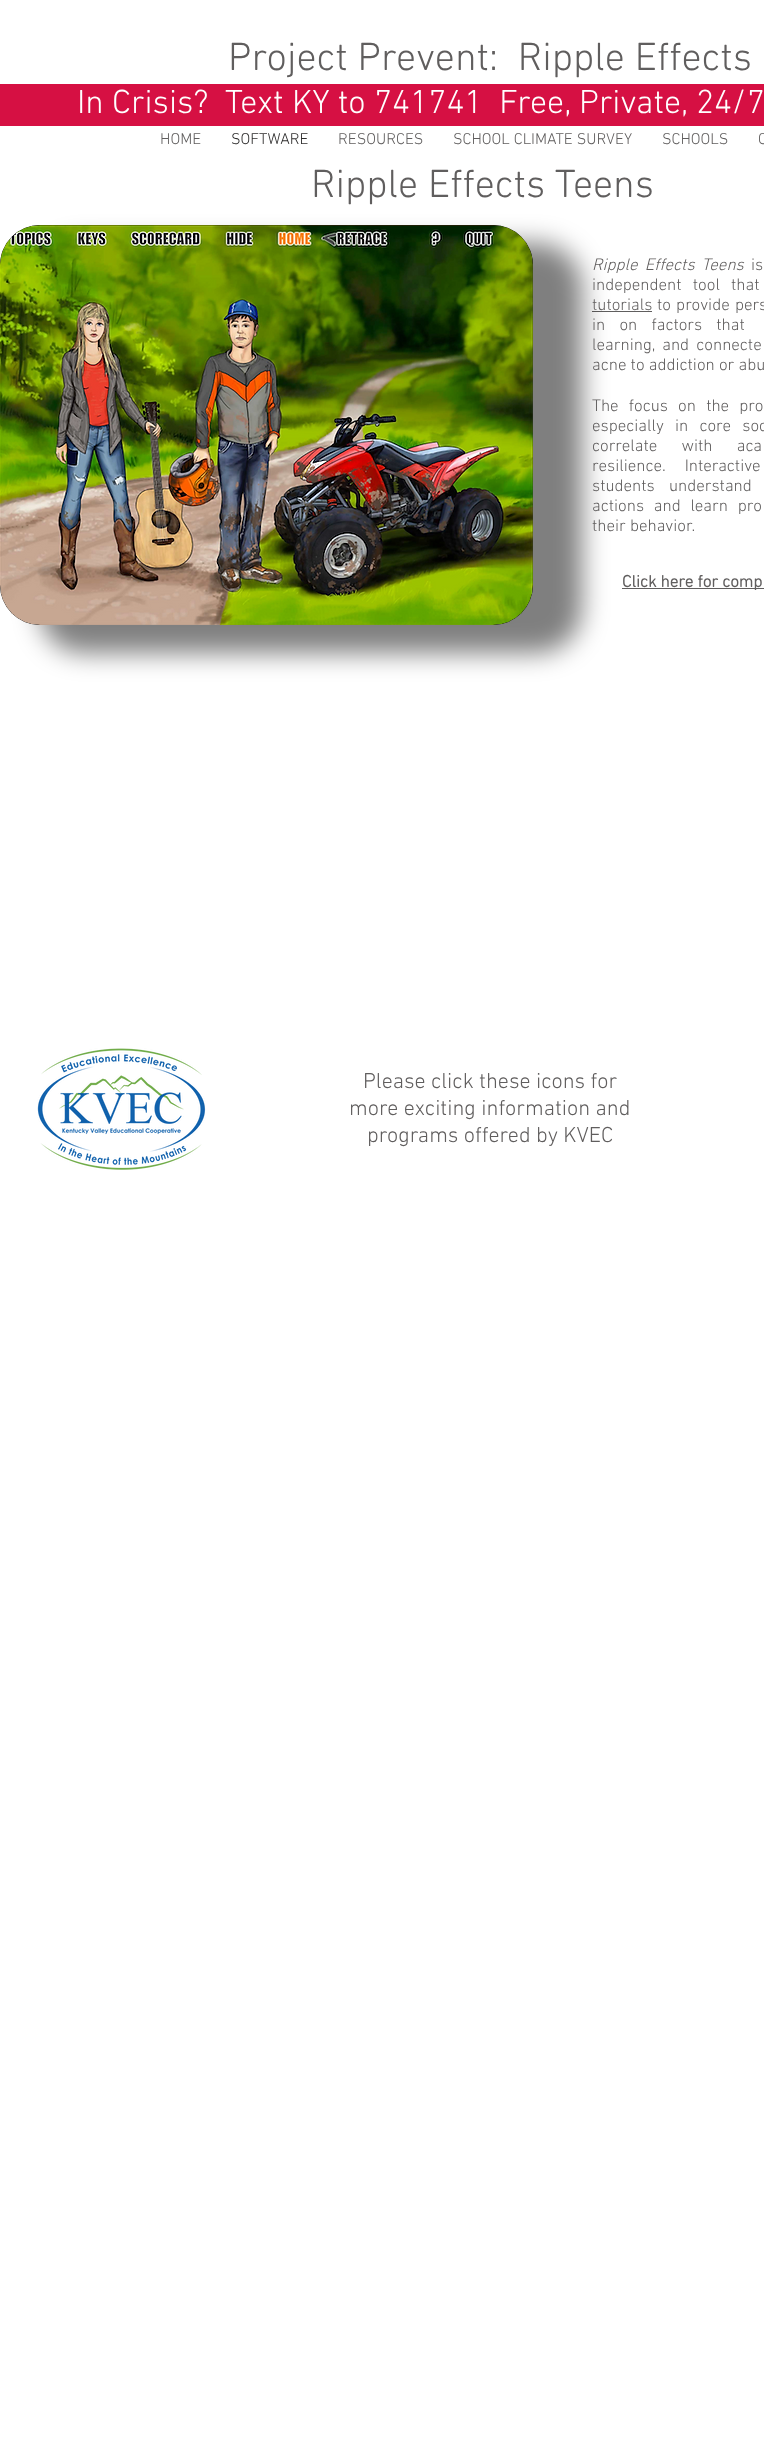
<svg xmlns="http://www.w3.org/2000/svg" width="764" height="2458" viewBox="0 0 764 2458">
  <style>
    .t1 { font: 300 40px 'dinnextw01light'; fill: #605e5e; }
    .t2 { font: 300 34px 'dinnextw01light'; fill: #fff; }
    .t3 { font: 300 16px 'dinnextw01light'; fill: #605e5e; }
    .t4 { font: 300 16px 'dinnextw01light'; fill: #2f2e2e; }
    .t5 { font: italic 300 17px 'dinnextw01light'; fill: #605e5e; }
    .t6 { font: 300 17px 'dinnextw01light'; fill: #605e5e; }
    .t7 { font: bold 17px 'dinnextw01light'; fill: #605e5e; }
    .t8 { font: 300 22px 'dinnextw01light'; fill: #605e5e; }
  </style>
  <rect width="100%" height="100%" fill="#fff"/>
  <text x="228" y="70" class="t1" xml:space="preserve">Project Prevent:  Ripple Effects</text>
  <rect x="0" y="84" width="764" height="42" fill="#d61043"/>
  <text x="77" y="113" class="t2" xml:space="preserve">In Crisis?  Text KY to 741741  Free, Private, 24/7</text>
  <text x="160" y="144" class="t3">HOME</text>
  <text x="231" y="144" class="t4">SOFTWARE</text>
  <text x="338" y="144" class="t3">RESOURCES</text>
  <text x="453" y="144" class="t3">SCHOOL CLIMATE SURVEY</text>
  <text x="662" y="144" class="t3">SCHOOLS</text>
  <text x="758" y="144" class="t3">C</text>
  <text x="311" y="197" class="t1">Ripple Effects Teens</text>
  <rect x="592" y="311" width="60" height="1" fill="#605e5e"/>
  <rect x="39" y="243" width="543" height="410" rx="45" fill="#00000080" filter="blur(13px)"/>
  <rect x="0" y="225" width="533" height="400" rx="40" fill="#000"/>
  <image x="0" y="225" width="533" height="400" href="images/1.png"/>
  <text x="592" y="270" word-spacing="3" class="t5">Ripple Effects Teens</text>
  <text x="751" y="270" word-spacing="3" class="t6">is</text>
  <text x="592" y="290" word-spacing="7" class="t6">independent tool that</text>
  <text x="592" y="310" class="t6">tutorials</text>
  <text x="657" y="310" word-spacing="1" class="t6">to provide pers</text>
  <text x="592" y="330" word-spacing="10" class="t6">in on factors that</text>
  <text x="592" y="350" word-spacing="3" class="t6">learning, and connecte</text>
  <text x="592" y="370" class="t6">acne to addiction or abu</text>
  <text x="592" y="411" word-spacing="6" class="t6">The focus on the pro</text>
  <text x="592" y="431" word-spacing="7" class="t6">especially in core soc</text>
  <text x="592" y="451" word-spacing="20" class="t6">correlate with aca</text>
  <text x="592" y="471" word-spacing="5.5" class="t6" xml:space="preserve">resilience.  Interactive</text>
  <text x="592" y="491" word-spacing="10" class="t6">students understand</text>
  <text x="592" y="511" word-spacing="5.5" class="t6">actions and learn pro</text>
  <text x="592" y="531" class="t6">their behavior.</text>
  <rect x="622" y="588" width="142" height="1" fill="#605e5e"/>
  <text x="622" y="587" class="t7">Click here for comp</text>
  <image x="37" y="1048" width="169" height="122" href="images/2.png"/>
  <text x="363" y="1088" class="t8">Please click these icons for</text>
  <text x="349" y="1115" class="t8">more exciting information and</text>
  <text x="367" y="1142" class="t8">programs offered by KVEC</text>
</svg>
